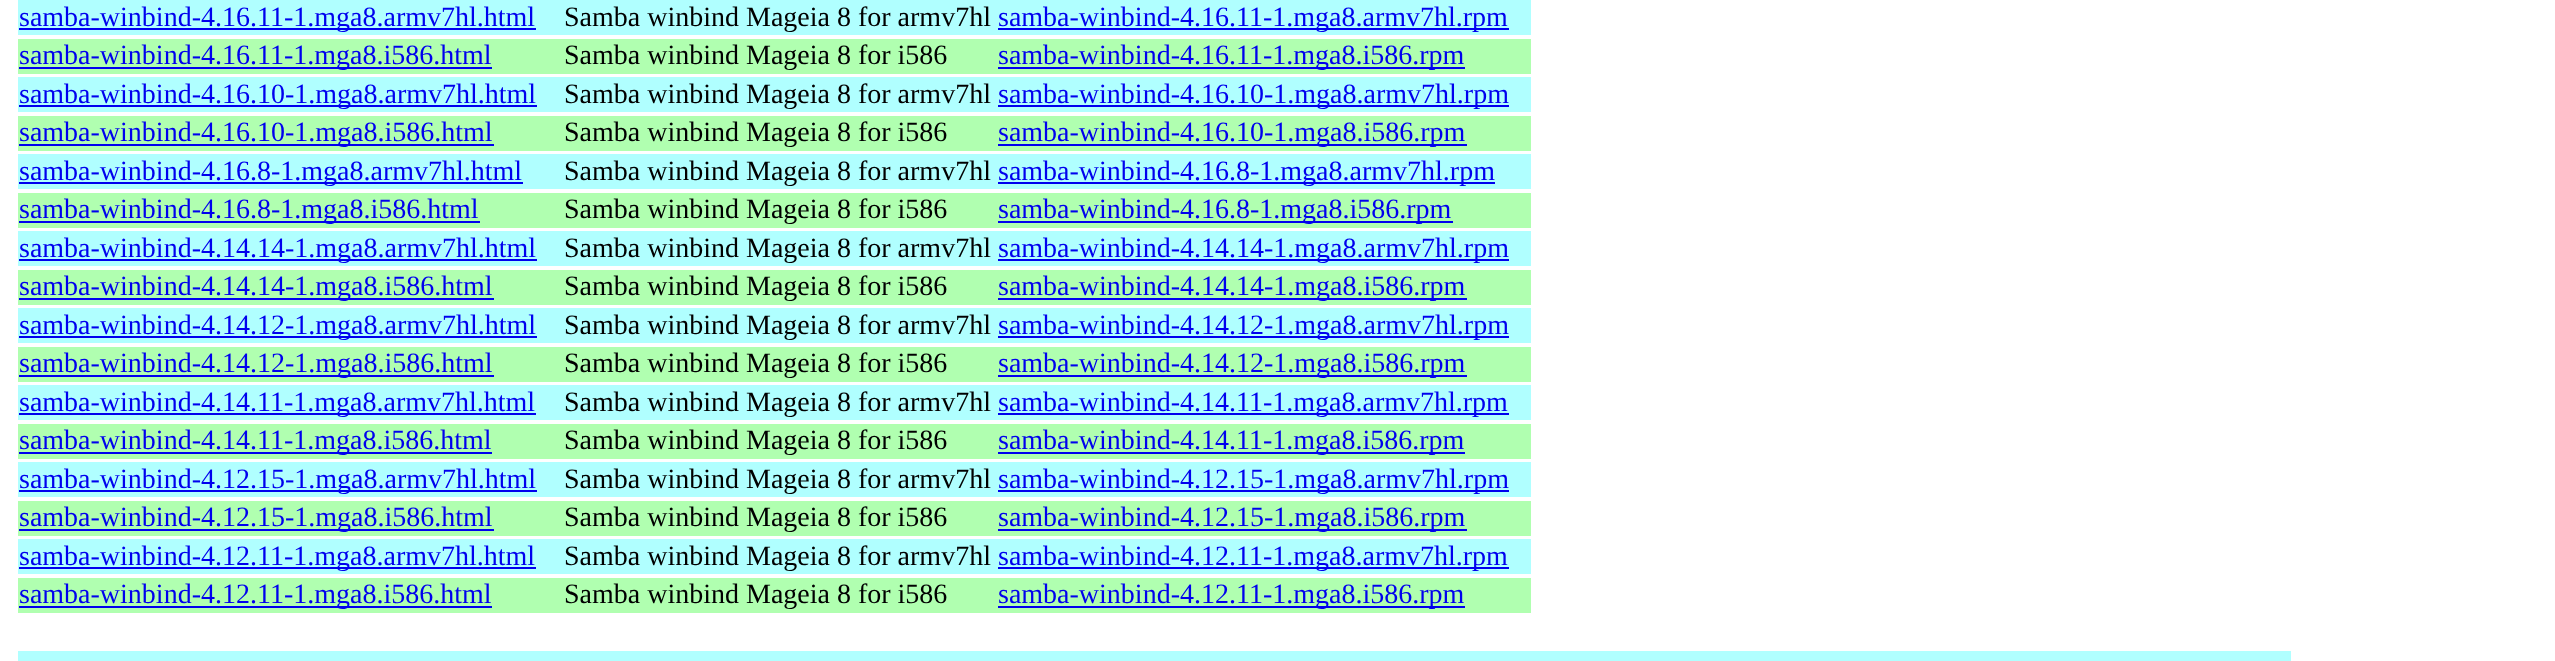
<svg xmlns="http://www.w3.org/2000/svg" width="2555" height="661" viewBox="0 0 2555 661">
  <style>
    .t1 { font: 28px Liberation Serif; fill: #00e; }
    .t2 { font: 28px Liberation Serif; fill: #000; }
  </style>
  <rect width="100%" height="100%" fill="#fff"/>
  <rect x="18" y="0" width="1513" height="35" fill="#b0ffff"/>
  <rect x="19" y="28" width="517" height="2" fill="#00e"/>
  <text x="19" y="26" class="t1">samba-winbind-4.16.11-1.mga8.armv7hl.html</text>
  <text x="564" y="26" class="t2">Samba winbind Mageia 8 for armv7hl</text>
  <rect x="998" y="28" width="511" height="2" fill="#00e"/>
  <text x="998" y="26" class="t1">samba-winbind-4.16.11-1.mga8.armv7hl.rpm</text>
  <rect x="18" y="39" width="1513" height="35" fill="#b0ffb0"/>
  <rect x="19" y="67" width="473" height="2" fill="#00e"/>
  <text x="19" y="64" class="t1">samba-winbind-4.16.11-1.mga8.i586.html</text>
  <text x="564" y="64" class="t2">Samba winbind Mageia 8 for i586</text>
  <rect x="998" y="67" width="467" height="2" fill="#00e"/>
  <text x="998" y="64" class="t1">samba-winbind-4.16.11-1.mga8.i586.rpm</text>
  <rect x="18" y="77" width="1513" height="35" fill="#b0ffff"/>
  <rect x="19" y="105" width="518" height="2" fill="#00e"/>
  <text x="19" y="103" class="t1">samba-winbind-4.16.10-1.mga8.armv7hl.html</text>
  <text x="564" y="103" class="t2">Samba winbind Mageia 8 for armv7hl</text>
  <rect x="998" y="105" width="511" height="2" fill="#00e"/>
  <text x="998" y="103" class="t1">samba-winbind-4.16.10-1.mga8.armv7hl.rpm</text>
  <rect x="18" y="116" width="1513" height="35" fill="#b0ffb0"/>
  <rect x="19" y="144" width="475" height="2" fill="#00e"/>
  <text x="19" y="141" class="t1">samba-winbind-4.16.10-1.mga8.i586.html</text>
  <text x="564" y="141" class="t2">Samba winbind Mageia 8 for i586</text>
  <rect x="998" y="144" width="469" height="2" fill="#00e"/>
  <text x="998" y="141" class="t1">samba-winbind-4.16.10-1.mga8.i586.rpm</text>
  <rect x="18" y="154" width="1513" height="35" fill="#b0ffff"/>
  <rect x="19" y="182" width="504" height="2" fill="#00e"/>
  <text x="19" y="180" class="t1">samba-winbind-4.16.8-1.mga8.armv7hl.html</text>
  <text x="564" y="180" class="t2">Samba winbind Mageia 8 for armv7hl</text>
  <rect x="998" y="182" width="497" height="2" fill="#00e"/>
  <text x="998" y="180" class="t1">samba-winbind-4.16.8-1.mga8.armv7hl.rpm</text>
  <rect x="18" y="193" width="1513" height="35" fill="#b0ffb0"/>
  <rect x="19" y="221" width="461" height="2" fill="#00e"/>
  <text x="19" y="218" class="t1">samba-winbind-4.16.8-1.mga8.i586.html</text>
  <text x="564" y="218" class="t2">Samba winbind Mageia 8 for i586</text>
  <rect x="998" y="221" width="455" height="2" fill="#00e"/>
  <text x="998" y="218" class="t1">samba-winbind-4.16.8-1.mga8.i586.rpm</text>
  <rect x="18" y="231" width="1513" height="35" fill="#b0ffff"/>
  <rect x="19" y="259" width="518" height="2" fill="#00e"/>
  <text x="19" y="257" class="t1">samba-winbind-4.14.14-1.mga8.armv7hl.html</text>
  <text x="564" y="257" class="t2">Samba winbind Mageia 8 for armv7hl</text>
  <rect x="998" y="259" width="511" height="2" fill="#00e"/>
  <text x="998" y="257" class="t1">samba-winbind-4.14.14-1.mga8.armv7hl.rpm</text>
  <rect x="18" y="270" width="1513" height="35" fill="#b0ffb0"/>
  <rect x="19" y="298" width="475" height="2" fill="#00e"/>
  <text x="19" y="295" class="t1">samba-winbind-4.14.14-1.mga8.i586.html</text>
  <text x="564" y="295" class="t2">Samba winbind Mageia 8 for i586</text>
  <rect x="998" y="298" width="469" height="2" fill="#00e"/>
  <text x="998" y="295" class="t1">samba-winbind-4.14.14-1.mga8.i586.rpm</text>
  <rect x="18" y="308" width="1513" height="35" fill="#b0ffff"/>
  <rect x="19" y="336" width="518" height="2" fill="#00e"/>
  <text x="19" y="334" class="t1">samba-winbind-4.14.12-1.mga8.armv7hl.html</text>
  <text x="564" y="334" class="t2">Samba winbind Mageia 8 for armv7hl</text>
  <rect x="998" y="336" width="511" height="2" fill="#00e"/>
  <text x="998" y="334" class="t1">samba-winbind-4.14.12-1.mga8.armv7hl.rpm</text>
  <rect x="18" y="347" width="1513" height="35" fill="#b0ffb0"/>
  <rect x="19" y="375" width="475" height="2" fill="#00e"/>
  <text x="19" y="372" class="t1">samba-winbind-4.14.12-1.mga8.i586.html</text>
  <text x="564" y="372" class="t2">Samba winbind Mageia 8 for i586</text>
  <rect x="998" y="375" width="469" height="2" fill="#00e"/>
  <text x="998" y="372" class="t1">samba-winbind-4.14.12-1.mga8.i586.rpm</text>
  <rect x="18" y="385" width="1513" height="35" fill="#b0ffff"/>
  <rect x="19" y="413" width="517" height="2" fill="#00e"/>
  <text x="19" y="411" class="t1">samba-winbind-4.14.11-1.mga8.armv7hl.html</text>
  <text x="564" y="411" class="t2">Samba winbind Mageia 8 for armv7hl</text>
  <rect x="998" y="413" width="511" height="2" fill="#00e"/>
  <text x="998" y="411" class="t1">samba-winbind-4.14.11-1.mga8.armv7hl.rpm</text>
  <rect x="18" y="424" width="1513" height="35" fill="#b0ffb0"/>
  <rect x="19" y="452" width="473" height="2" fill="#00e"/>
  <text x="19" y="449" class="t1">samba-winbind-4.14.11-1.mga8.i586.html</text>
  <text x="564" y="449" class="t2">Samba winbind Mageia 8 for i586</text>
  <rect x="998" y="452" width="467" height="2" fill="#00e"/>
  <text x="998" y="449" class="t1">samba-winbind-4.14.11-1.mga8.i586.rpm</text>
  <rect x="18" y="462" width="1513" height="35" fill="#b0ffff"/>
  <rect x="19" y="490" width="518" height="2" fill="#00e"/>
  <text x="19" y="488" class="t1">samba-winbind-4.12.15-1.mga8.armv7hl.html</text>
  <text x="564" y="488" class="t2">Samba winbind Mageia 8 for armv7hl</text>
  <rect x="998" y="490" width="511" height="2" fill="#00e"/>
  <text x="998" y="488" class="t1">samba-winbind-4.12.15-1.mga8.armv7hl.rpm</text>
  <rect x="18" y="501" width="1513" height="35" fill="#b0ffb0"/>
  <rect x="19" y="529" width="475" height="2" fill="#00e"/>
  <text x="19" y="526" class="t1">samba-winbind-4.12.15-1.mga8.i586.html</text>
  <text x="564" y="526" class="t2">Samba winbind Mageia 8 for i586</text>
  <rect x="998" y="529" width="469" height="2" fill="#00e"/>
  <text x="998" y="526" class="t1">samba-winbind-4.12.15-1.mga8.i586.rpm</text>
  <rect x="18" y="539" width="1513" height="35" fill="#b0ffff"/>
  <rect x="19" y="567" width="517" height="2" fill="#00e"/>
  <text x="19" y="565" class="t1">samba-winbind-4.12.11-1.mga8.armv7hl.html</text>
  <text x="564" y="565" class="t2">Samba winbind Mageia 8 for armv7hl</text>
  <rect x="998" y="567" width="511" height="2" fill="#00e"/>
  <text x="998" y="565" class="t1">samba-winbind-4.12.11-1.mga8.armv7hl.rpm</text>
  <rect x="18" y="578" width="1513" height="35" fill="#b0ffb0"/>
  <rect x="19" y="606" width="473" height="2" fill="#00e"/>
  <text x="19" y="603" class="t1">samba-winbind-4.12.11-1.mga8.i586.html</text>
  <text x="564" y="603" class="t2">Samba winbind Mageia 8 for i586</text>
  <rect x="998" y="606" width="467" height="2" fill="#00e"/>
  <text x="998" y="603" class="t1">samba-winbind-4.12.11-1.mga8.i586.rpm</text>
  <rect x="18" y="651" width="2273" height="10" fill="#b0ffff"/>
</svg>
